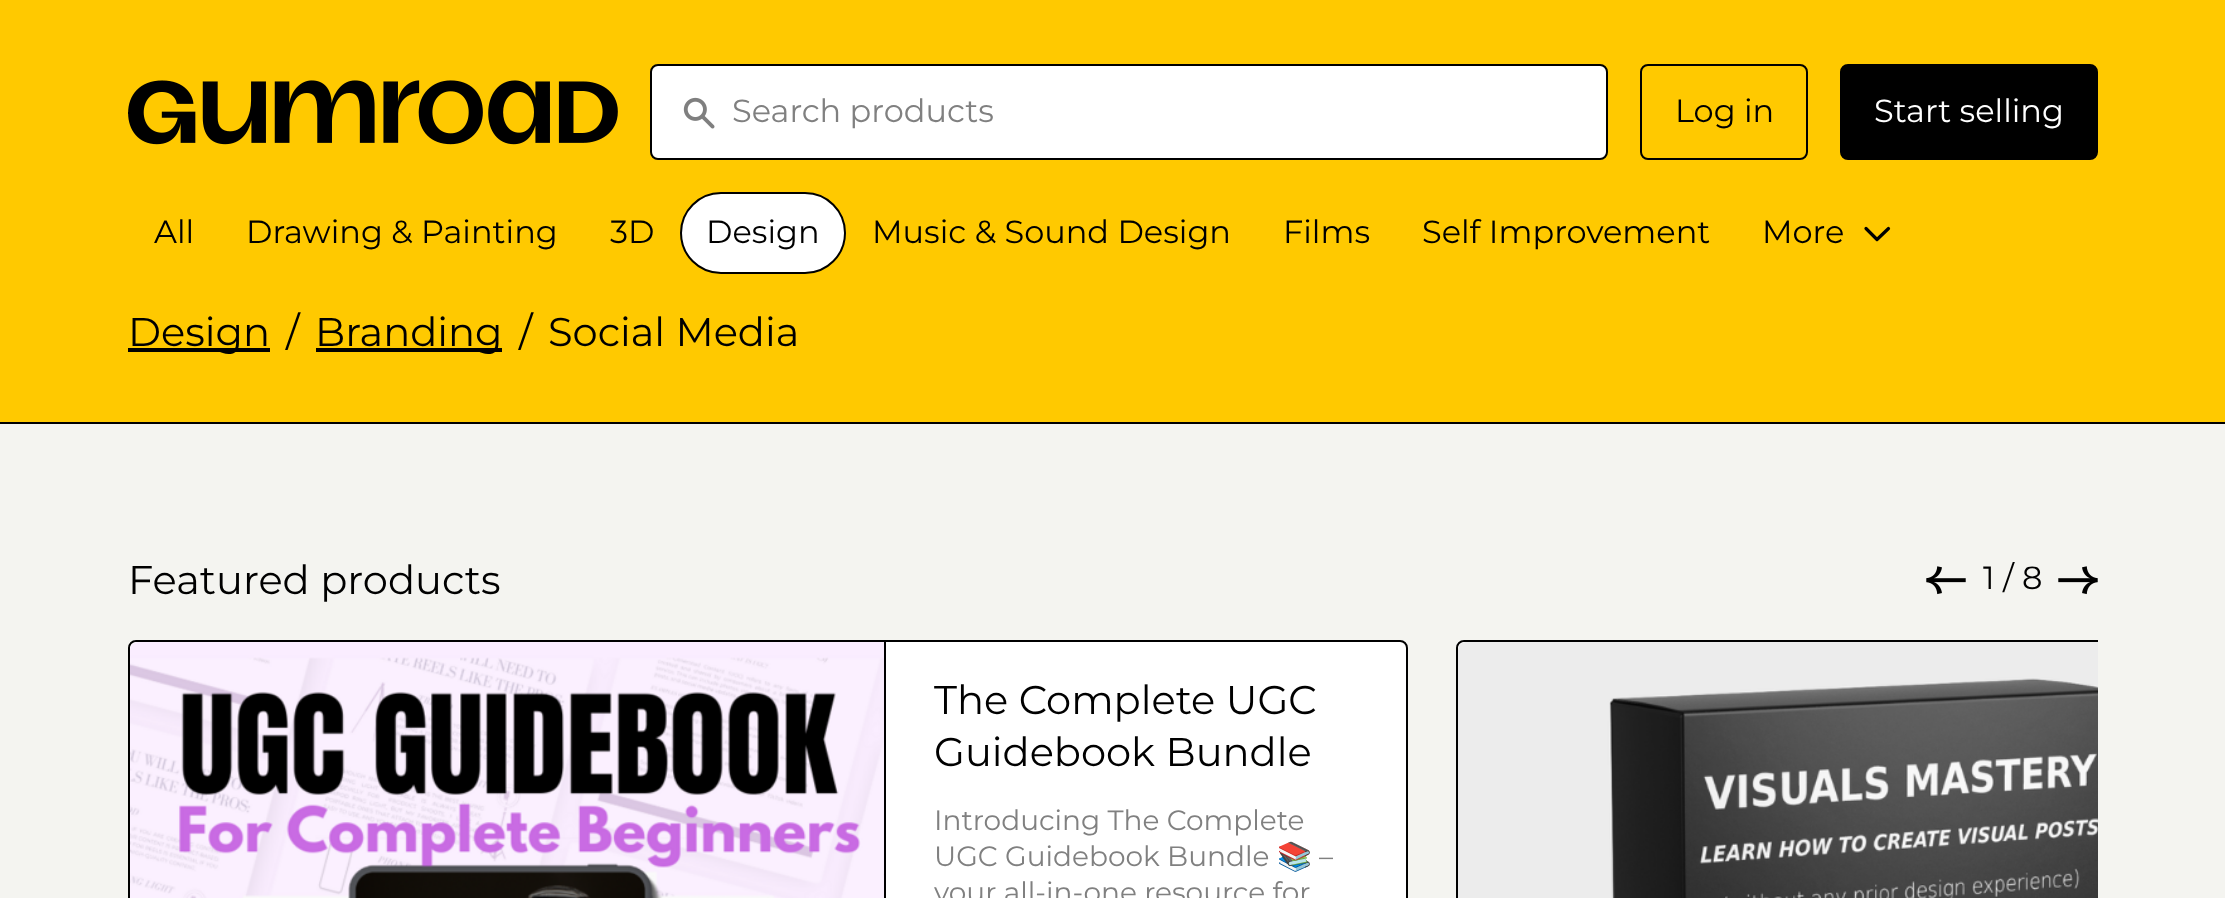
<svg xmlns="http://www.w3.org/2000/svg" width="2225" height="898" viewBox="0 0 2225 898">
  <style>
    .t1 { font: 32px Montserrat; fill: #808080; }
    .t2 { font: 32px Montserrat; fill: #000; }
    .t3 { font: 32px Montserrat; fill: #fff; }
    .t4 { font: 40px Montserrat; fill: #000; }
    .t5 { font: 28px Montserrat; fill: #808080; }
    .t6 { font: 28px Noto Color Emoji; fill: #808080; }
  </style>
  <defs>
    <clipPath id="clip1"><rect x="128" y="640" width="1970" height="258"/></clipPath>
  </defs>
  <rect width="100%" height="100%" fill="#f4f4f0"/>
  <rect x="0" y="0" width="2225" height="422" fill="#ffc900"/>
  <rect x="0" y="422" width="2225" height="2" fill="#000"/>
  <image x="128" y="80" width="490" height="65" href="images/1.png"/>
  <rect x="128" y="112" width="8" height="2" fill="#000"/>
  <rect x="651" y="65" width="956" height="94" rx="7" fill="#fff" stroke="#000" stroke-width="2"/>
  <image x="683" y="97" width="32" height="32" href="images/2.png"/>
  <text x="732" y="122" class="t1">Search products</text>
  <rect x="1641" y="65" width="166" height="94" rx="7" fill="none" stroke="#000" stroke-width="2"/>
  <text x="1675" y="122" class="t2">Log in</text>
  <rect x="1841" y="65" width="256" height="94" rx="7" fill="#000" stroke="#000" stroke-width="2"/>
  <text x="1874" y="122" class="t3">Start selling</text>
  <text x="154" y="243" class="t2">All</text>
  <text x="246" y="243" class="t2">Drawing &amp; Painting</text>
  <text x="610" y="243" class="t2">3D</text>
  <rect x="681" y="193" width="164" height="80" rx="40" fill="#fff" stroke="#000" stroke-width="2"/>
  <text x="706" y="243" class="t2">Design</text>
  <text x="872" y="243" class="t2">Music &amp; Sound Design</text>
  <text x="1283" y="243" class="t2">Films</text>
  <text x="1422" y="243" class="t2">Self Improvement</text>
  <text x="1762" y="243" class="t2">More</text>
  <path d="M1888.5 228.5L1877 239.5L1866 228.5" fill="none" stroke="#000" stroke-width="3.2" stroke-linecap="round" stroke-linejoin="round"/>
  <rect x="128" y="348" width="142" height="4" fill="#000"/>
  <text x="128" y="346" class="t4">Design</text>
  <text x="286" y="346" class="t4">/</text>
  <rect x="316" y="348" width="186" height="4" fill="#000"/>
  <text x="315" y="346" class="t4">Branding</text>
  <text x="519" y="346" class="t4">/</text>
  <text x="548" y="346" class="t4">Social Media</text>
  <text x="128" y="594" class="t4">Featured products</text>
  <image x="1926" y="566" width="40" height="29" href="images/3.png"/>
  <text x="1983" y="589" class="t2">1 / 8</text>
  <image x="2058" y="566" width="40" height="29" href="images/4.png"/>
  <path d="M136 640H1400C1404.5 640 1408 643.5 1408 648V898H128V648C128 643.5 131.5 640 136 640Z" fill="#fff"/>
  <rect x="129" y="641" width="1278" height="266" rx="7" fill="none" stroke="#000" stroke-width="2"/>
  <image x="130" y="642" width="8" height="8" href="images/5.png"/>
  <rect x="884" y="642" width="2" height="256" fill="#000"/>
  <image x="130" y="642" width="754" height="256" href="images/6.png"/>
  <text x="934" y="714" class="t4">The Complete UGC</text>
  <text x="934" y="766" class="t4">Guidebook Bundle</text>
  <text x="934" y="830" class="t5">Introducing The Complete</text>
  <text x="934" y="866" class="t5">UGC Guidebook Bundle</text>
  <text x="1277" y="866" class="t6">📚</text>
  <text x="1319" y="866" class="t5">–</text>
  <text x="934" y="902" class="t5">your all-in-one resource for</text>
  <path d="M1464 640H2098V898H1456V648C1456 643.5 1459.5 640 1464 640Z" fill="#fff"/>
  <g clip-path="url(#clip1)">
    <rect x="1457" y="641" width="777" height="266" rx="7" fill="none" stroke="#000" stroke-width="2"/>
  </g>
  <image x="1458" y="642" width="8" height="8" href="images/5.png"/>
  <image x="1458" y="642" width="640" height="256" href="images/7.png"/>
</svg>
